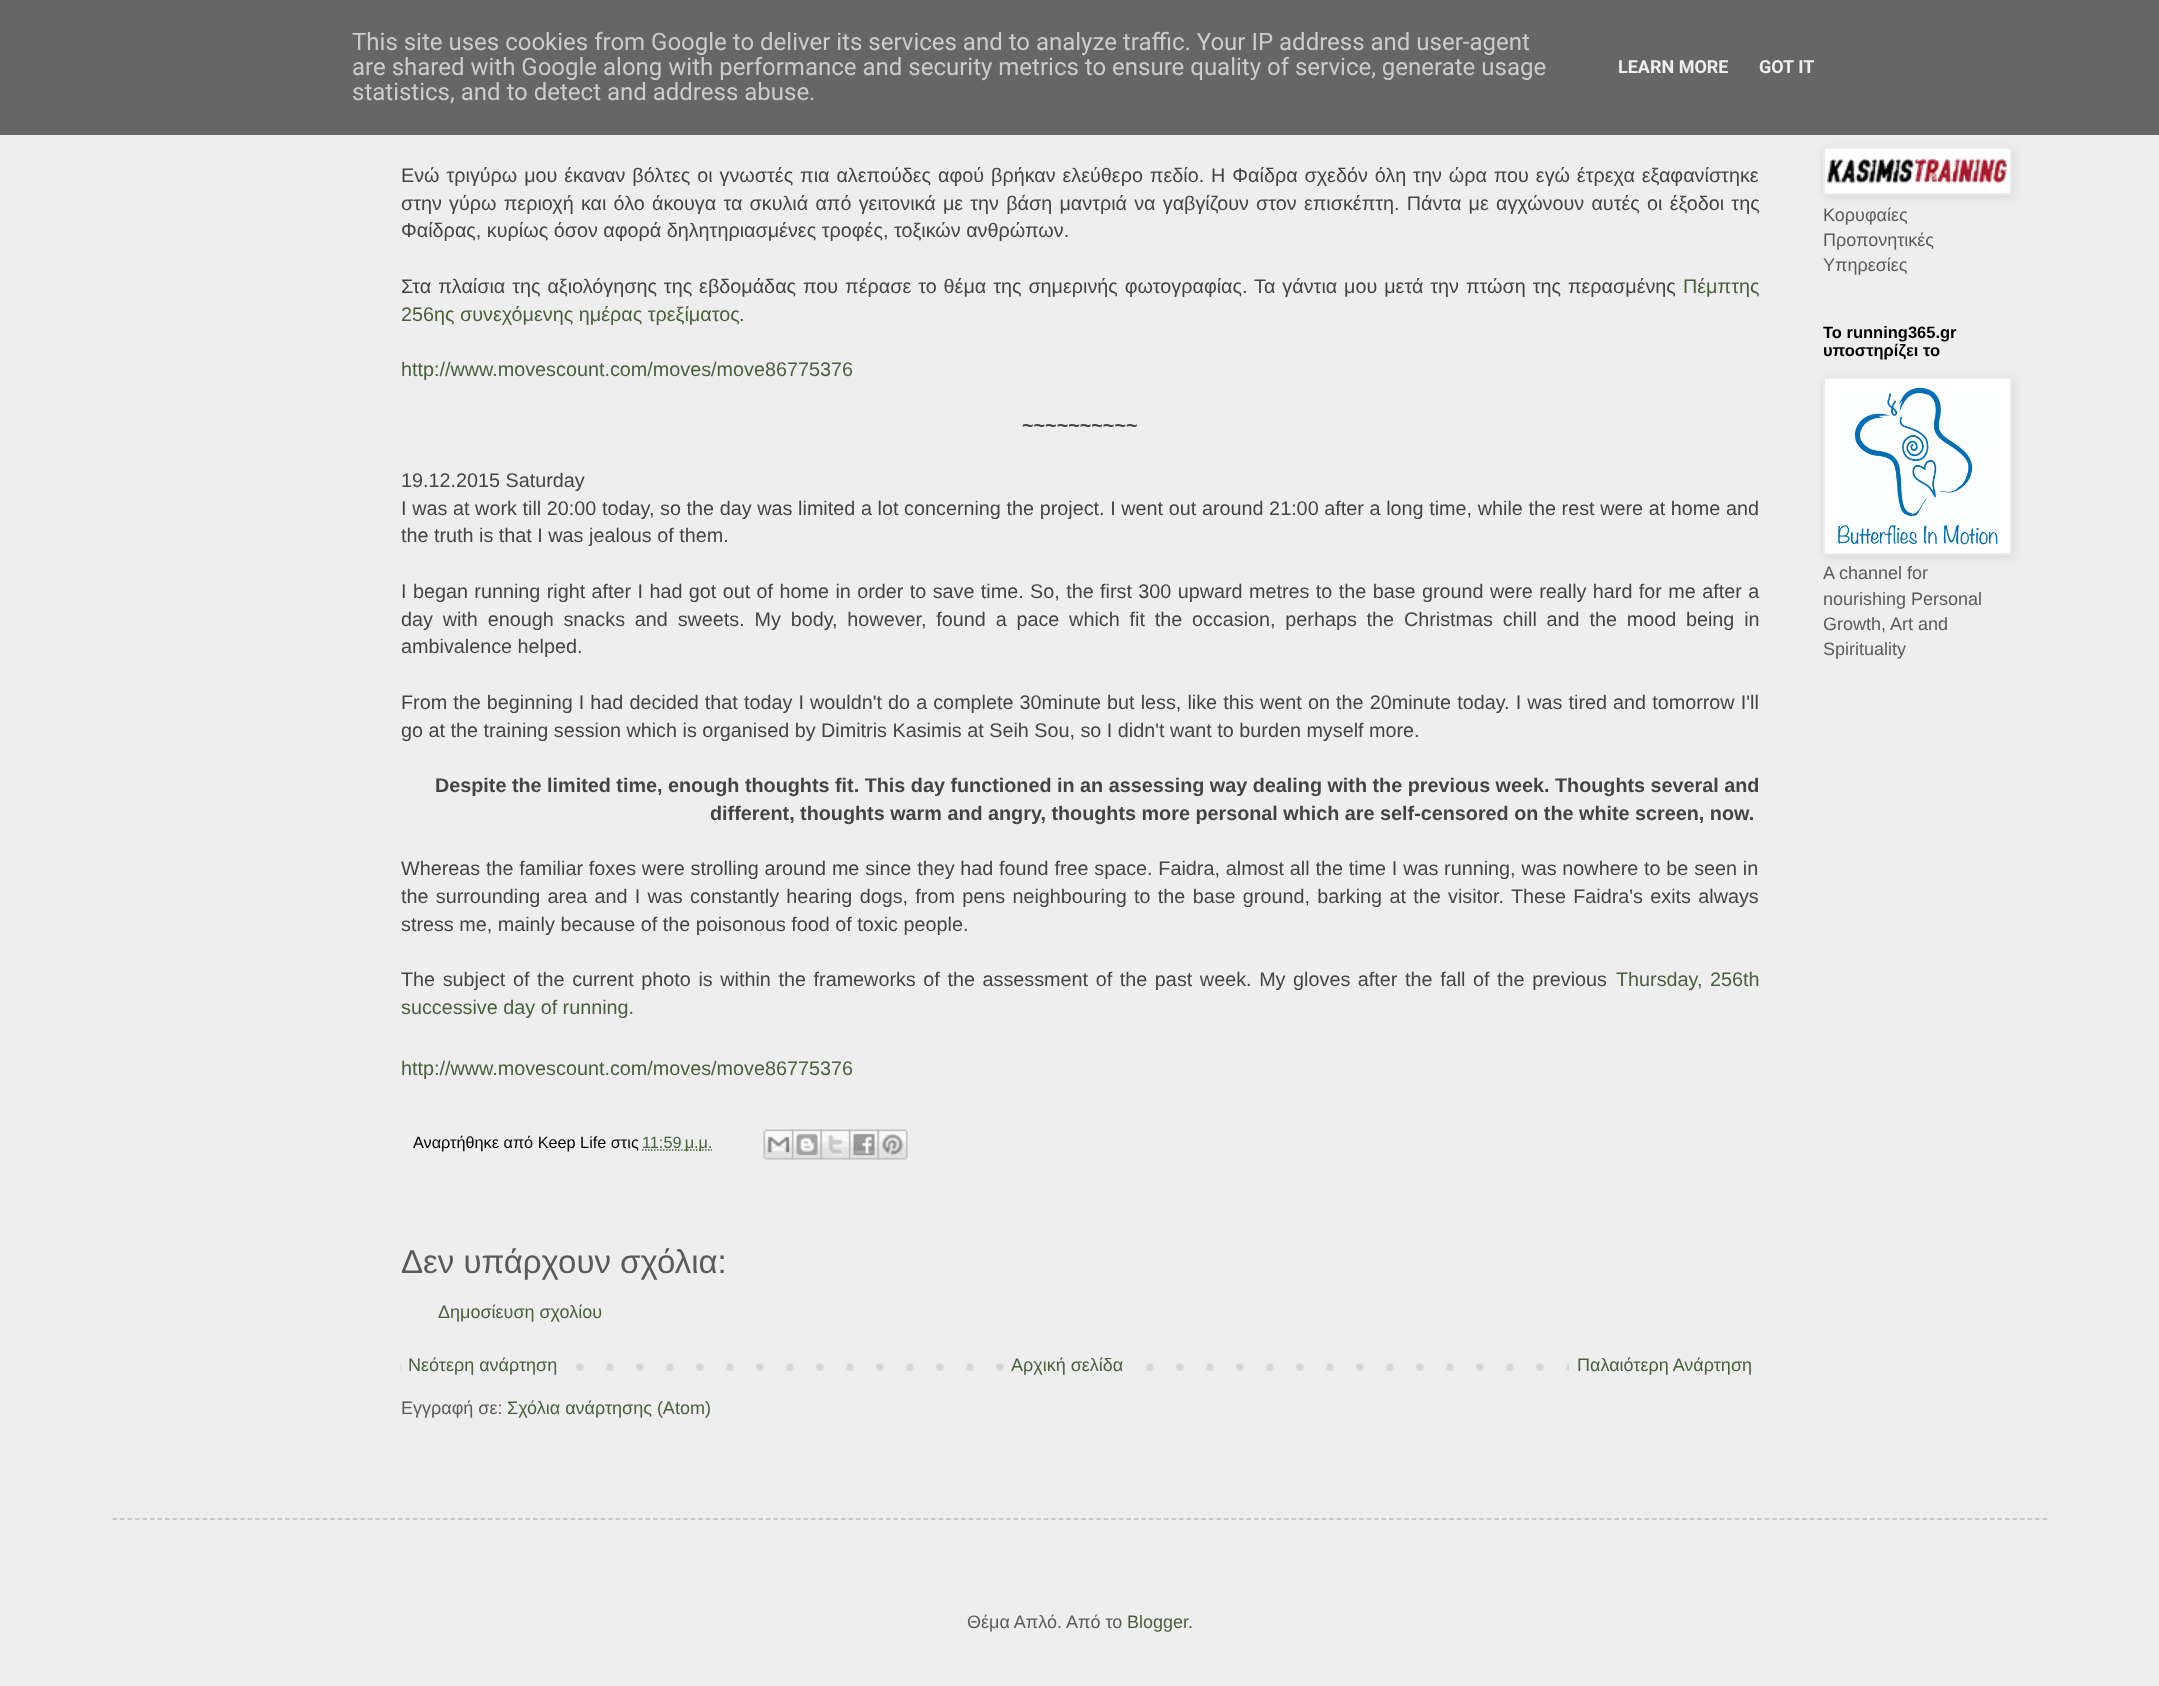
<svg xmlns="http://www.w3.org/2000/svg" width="2159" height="1686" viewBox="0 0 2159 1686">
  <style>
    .t1 { font: 24px Roboto; fill: #ccc; }
    .t2 { font: bold 18px Roboto; fill: #eee; }
    .t3 { font: 19.8px Liberation Sans; fill: #444; }
    .t4 { font: 19.8px Liberation Sans; fill: #47613a; }
    .t5 { font: bold 19.8px Liberation Sans; fill: #444; }
    .t6 { font: 16.25px Liberation Sans; fill: #000; }
    .t7 { font: 16.25px Liberation Sans; fill: #47613a; }
    .t8 { font: 33px Liberation Sans; fill: #5b5b5b; }
    .t9 { font: 18px Liberation Sans; fill: #47613a; }
    .t10 { font: 18px Liberation Sans; fill: #5b5b5b; }
    .t11 { font: bold 16.5px Liberation Sans; fill: #000; }
  </style>
  <rect width="100%" height="100%" fill="#eee"/>
  <rect x="0" y="0" width="2159" height="135" fill="#666"/>
  <text x="352" y="50" class="t1">This site uses cookies from Google to deliver its services and to analyze traffic. Your IP address and user-agent</text>
  <text x="352" y="75" class="t1">are shared with Google along with performance and security metrics to ensure quality of service, generate usage</text>
  <text x="352" y="100" class="t1">statistics, and to detect and address abuse.</text>
  <text x="1618" y="73" class="t2">LEARN MORE</text>
  <text x="1759" y="73" class="t2">GOT IT</text>
  <text x="401" y="182" word-spacing="1.4" class="t3">Ενώ τριγύρω μου έκαναν βόλτες οι γνωστές πια αλεπούδες αφού βρήκαν ελεύθερο πεδίο. Η Φαίδρα σχεδόν όλη την ώρα που εγώ έτρεχα εξαφανίστηκε</text>
  <text x="401" y="210" word-spacing="1.7" class="t3">στην γύρω περιοχή και όλο άκουγα τα σκυλιά από γειτονικά με την βάση μαντριά να γαβγίζουν στον επισκέπτη. Πάντα με αγχώνουν αυτές οι έξοδοι της</text>
  <text x="401" y="237" class="t3">Φαίδρας, κυρίως όσον αφορά δηλητηριασμένες τροφές, τοξικών ανθρώπων.</text>
  <text x="401" y="293" word-spacing="1.4" class="t3">Στα πλαίσια της αξιολόγησης της εβδομάδας που πέρασε το θέμα της σημερινής φωτογραφίας. Τα γάντια μου μετά την πτώση της περασμένης</text>
  <text x="1683" y="293" class="t4">Πέμπτης</text>
  <text x="401" y="321" class="t4">256ης συνεχόμενης ημέρας τρεξίματος</text>
  <text x="739" y="321" class="t3">.</text>
  <text x="401" y="376" class="t4">http://www.movescount.com/moves/move86775376</text>
  <text x="1022" y="432" class="t5">~~~~~~~~~~</text>
  <text x="401" y="487" class="t3">19.12.2015 Saturday</text>
  <text x="401" y="515" word-spacing="0.15" class="t3">I was at work till 20:00 today, so the day was limited a lot concerning the project. I went out around 21:00 after a long time, while the rest were at home and</text>
  <text x="401" y="542" class="t3">the truth is that I was jealous of them.</text>
  <text x="401" y="598" word-spacing="0.9" class="t3">I began running right after I had got out of home in order to save time. So, the first 300 upward metres to the base ground were really hard for me after a</text>
  <text x="401" y="626" word-spacing="4.3" class="t3">day with enough snacks and sweets. My body, however, found a pace which fit the occasion, perhaps the Christmas chill and the mood being in</text>
  <text x="401" y="653" class="t3">ambivalence helped.</text>
  <text x="401" y="709" word-spacing="0.6" class="t3">From the beginning I had decided that today I wouldn't do a complete 30minute but less, like this went on the 20minute today. I was tired and tomorrow I'll</text>
  <text x="401" y="737" class="t3">go at the training session which is organised by Dimitris Kasimis at Seih Sou, so I didn't want to burden myself more.</text>
  <text x="435" y="792" class="t5">Despite the limited time, enough thoughts fit. This day functioned in an assessing way dealing with the previous week. Thoughts several and</text>
  <text x="710" y="820" class="t5">different, thoughts warm and angry, thoughts more personal which are self-censored on the white screen, now.</text>
  <text x="401" y="875" word-spacing="0.3" class="t3">Whereas the familiar foxes were strolling around me since they had found free space. Faidra, almost all the time I was running, was nowhere to be seen in</text>
  <text x="401" y="903" word-spacing="1.8" class="t3">the surrounding area and I was constantly hearing dogs, from pens neighbouring to the base ground, barking at the visitor. These Faidra's exits always</text>
  <text x="401" y="931" class="t3">stress me, mainly because of the poisonous food of toxic people.</text>
  <text x="401" y="986" word-spacing="2.1" class="t3">The subject of the current photo is within the frameworks of the assessment of the past week. My gloves after the fall of the previous</text>
  <text x="1616" y="986" word-spacing="2.1" class="t4">Thursday, 256th</text>
  <text x="401" y="1014" class="t4">successive day of running.</text>
  <text x="401" y="1075" class="t4">http://www.movescount.com/moves/move86775376</text>
  <text x="413" y="1148" class="t6">Αναρτήθηκε από Keep Life στις</text>
  <path d="M642 1150H712" fill="none" stroke="#47613a" stroke-width="1.5" stroke-dasharray="1.5 1.5"/>
  <text x="642" y="1148" class="t7">11:59 μ.μ.</text>
  <image x="763" y="1129" width="31" height="31" href="images/1.png"/>
  <image x="792" y="1129" width="30" height="31" href="images/2.png"/>
  <image x="820" y="1129" width="31" height="31" href="images/3.png"/>
  <image x="849" y="1129" width="30" height="31" href="images/4.png"/>
  <image x="877" y="1129" width="31" height="31" href="images/5.png"/>
  <text x="401" y="1273" class="t8">Δεν υπάρχουν σχόλια:</text>
  <text x="438" y="1318" class="t9">Δημοσίευση σχολίου</text>
  <image x="400" y="1363" width="1169" height="8" href="images/6.png"/>
  <rect x="401" y="1363" width="154" height="8" fill="#eee"/>
  <text x="408" y="1371" class="t9">Νεότερη ανάρτηση</text>
  <rect x="1004" y="1363" width="121" height="8" fill="#eee"/>
  <text x="1011" y="1371" class="t9">Αρχική σελίδα</text>
  <text x="1577" y="1371" class="t9">Παλαιότερη Ανάρτηση</text>
  <text x="401" y="1414" class="t10">Εγγραφή σε:</text>
  <text x="507" y="1414" class="t9">Σχόλια ανάρτησης (Atom)</text>
  <rect x="1824" y="149" width="189" height="48" fill="#0000001a" filter="blur(4px)"/>
  <rect x="1824" y="148" width="187" height="46" fill="#fff" stroke="#ececec" stroke-width="2"/>
  <image x="1827" y="158" width="180" height="26" href="images/7.png"/>
  <text x="1823" y="221" class="t10">Κορυφαίες</text>
  <text x="1823" y="246" class="t10">Προπονητικές</text>
  <text x="1823" y="271" class="t10">Υπηρεσίες</text>
  <text x="1823" y="338" class="t11">Το running365.gr</text>
  <text x="1823" y="356" class="t11">υποστηρίζει το</text>
  <rect x="1824" y="378" width="189" height="179" fill="#0000001a" filter="blur(4px)"/>
  <rect x="1824" y="378" width="187" height="176" fill="#fff" stroke="#ececec" stroke-width="2"/>
  <image x="1837" y="387" width="161" height="158" href="images/8.png"/>
  <text x="1823" y="579" class="t10">A channel for</text>
  <text x="1823" y="605" class="t10">nourishing Personal</text>
  <text x="1823" y="630" class="t10">Growth, Art and</text>
  <text x="1823" y="655" class="t10">Spirituality</text>
  <path d="M112.5 1519H2047.5" fill="none" stroke="#bbb" stroke-width="1.5" stroke-dasharray="4.5 3.01"/>
  <text x="967" y="1628" class="t10">Θέμα Απλό. Από το</text>
  <text x="1127" y="1628" class="t9">Blogger</text>
  <text x="1188" y="1628" class="t10">.</text>
</svg>
